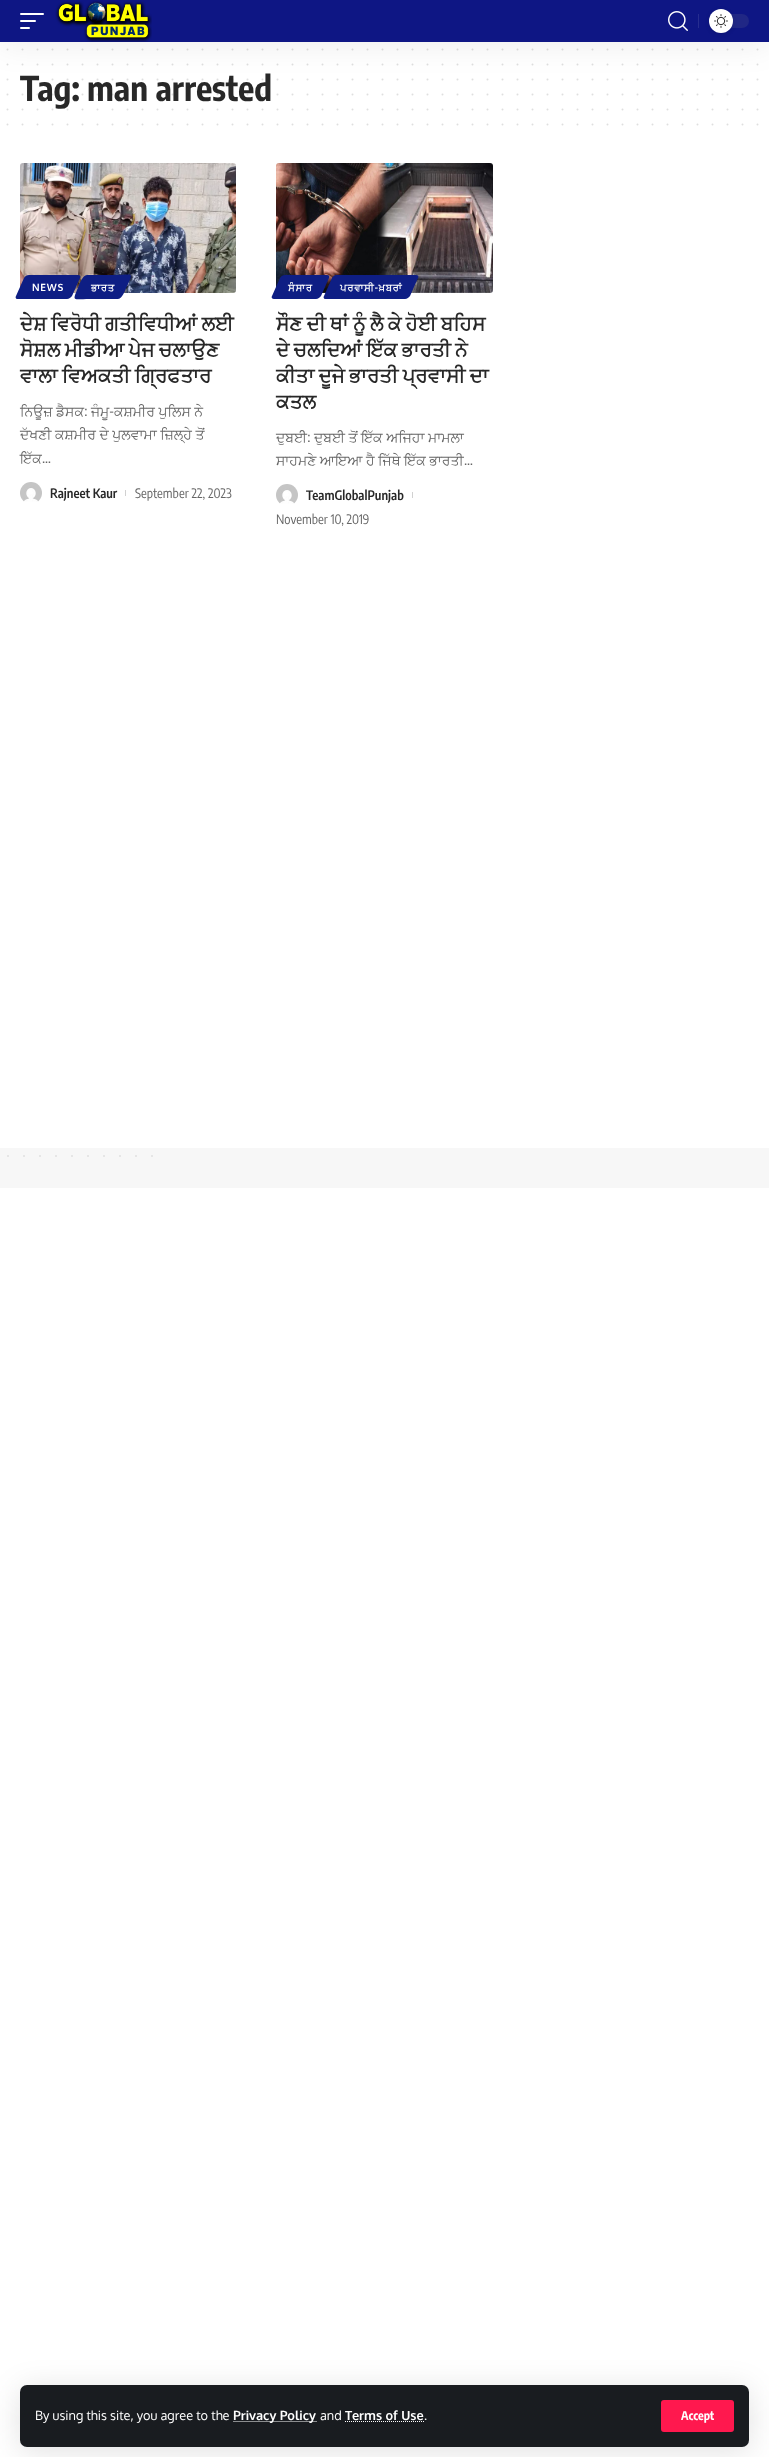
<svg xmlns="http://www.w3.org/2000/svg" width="769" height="2457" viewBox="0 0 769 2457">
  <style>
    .t1 { font: bold 34px Encode Sans Condensed; fill: #282828; }
    .t2 { font: bold 10px Oxygen; letter-spacing: 0.75px; fill: #fff; }
    .t3 { font: bold 10px FreeSans; letter-spacing: 0.75px; fill: #fff; }
    .t4 { font: bold 20px FreeSans; fill: #282828; }
    .t5 { font: 14px FreeSans; fill: #666; }
    .t6 { font: 600 13px Encode Sans Condensed; fill: #282828; }
    .t7 { font: 13px Encode Sans Condensed; fill: #666; }
    .t8 { font: 12.75px Oxygen; fill: #fff; }
    .t9 { font: bold 12.75px Oxygen; fill: #fff; }
    .t10 { font: bold 12px Encode Sans Condensed; fill: #fff; }
  </style>
  <rect width="100%" height="100%" fill="#fff"/>
  <path d="M7.5 49.5H757.7" fill="none" stroke="#dfdfdf" stroke-width="2" stroke-linecap="round" stroke-dasharray="0 15"/>
  <path d="M7.5 64.5H757.7" fill="none" stroke="#dfdfdf" stroke-width="2" stroke-linecap="round" stroke-dasharray="0 15"/>
  <text x="20" y="101" class="t1">Tag: man arrested</text>
  <path d="M7.5 79.5H757.7" fill="none" stroke="#28282826" stroke-width="2" stroke-linecap="round" stroke-dasharray="0 15"/>
  <path d="M7.5 94.5H757.7" fill="none" stroke="#28282826" stroke-width="2" stroke-linecap="round" stroke-dasharray="0 15"/>
  <path d="M7.5 109.5H757.7" fill="none" stroke="#dfdfdf" stroke-width="2" stroke-linecap="round" stroke-dasharray="0 15"/>
  <path d="M7.5 124.5H757.7" fill="none" stroke="#dfdfdf" stroke-width="2" stroke-linecap="round" stroke-dasharray="0 15"/>
  <image x="20" y="163" width="216" height="130" href="images/1.png"/>
  <path d="M29 275H78C80 275 81 276 80 278L72 296C71 297 69 299 67 299H17C16 299 15 297 16 296L24 278C25 276 27 275 29 275Z" fill="#0e1e84"/>
  <text x="32" y="291" class="t2">NEWS</text>
  <path d="M87 275H115C131 275 134 271 128 284C126 287 123 299 118 299H90C74 299 72 302 77 290C79 286 82 275 87 275Z" fill="#0e1e84"/>
  <text x="91" y="291" class="t3">ਭਾਰਤ</text>
  <text x="20" y="330" word-spacing="-0.75" class="t4">ਦੇਸ਼ ਵਿਰੋਧੀ ਗਤੀਵਿਧੀਆਂ ਲਈ</text>
  <text x="20" y="356" word-spacing="-0.75" class="t4">ਸੋਸ਼ਲ ਮੀਡੀਆ ਪੇਜ ਚਲਾਉਣ</text>
  <text x="20" y="382" word-spacing="-0.75" class="t4">ਵਾਲਾ ਵਿਅਕਤੀ ਗ੍ਰਿਫਤਾਰ</text>
  <text x="20" y="416" class="t5">ਨਿਊਜ਼ ਡੈਸਕ: ਜੰਮੂ-ਕਸ਼ਮੀਰ ਪੁਲਿਸ ਨੇ</text>
  <text x="20" y="439" class="t5">ਦੱਖਣੀ ਕਸ਼ਮੀਰ ਦੇ ਪੁਲਵਾਮਾ ਜ਼ਿਲ੍ਹੇ ਤੋਂ</text>
  <text x="20" y="463" class="t5">ਇੱਕ…</text>
  <image x="20" y="482" width="22" height="20" href="images/2.png"/>
  <text x="50" y="498" class="t6">Rajneet Kaur</text>
  <rect x="125" y="490" width="1" height="6" fill="#d1d1d1"/>
  <text x="135" y="498" class="t7">September 22, 2023</text>
  <image x="276" y="163" width="217" height="130" href="images/3.png"/>
  <path d="M285 275H327C329 275 330 276 329 278L321 296C320 297 318 299 316 299H274C272 299 271 297 272 296L280 278C281 276 283 275 285 275Z" fill="#0e1e84"/>
  <text x="288" y="291" class="t3">ਸੰਸਾਰ</text>
  <path d="M336 275H416C418 275 419 276 418 278L410 296C409 297 407 299 405 299H325C324 299 323 297 324 296L332 278C333 276 335 275 336 275Z" fill="#0e1e84"/>
  <text x="340" y="291" class="t3">ਪਰਵਾਸੀ-ਖ਼ਬਰਾਂ</text>
  <text x="276" y="330" word-spacing="-0.75" class="t4">ਸੌਣ ਦੀ ਥਾਂ ਨੂੰ ਲੈ ਕੇ ਹੋਈ ਬਹਿਸ</text>
  <text x="276" y="356" word-spacing="-0.75" class="t4">ਦੇ ਚਲਦਿਆਂ ਇੱਕ ਭਾਰਤੀ ਨੇ</text>
  <text x="276" y="382" word-spacing="-0.75" class="t4">ਕੀਤਾ ਦੂਜੇ ਭਾਰਤੀ ਪ੍ਰਵਾਸੀ ਦਾ</text>
  <text x="276" y="408" class="t4">ਕਤਲ</text>
  <text x="276" y="442" class="t5">ਦੁਬਈ: ਦੁਬਈ ਤੋਂ ਇੱਕ ਅਜਿਹਾ ਮਾਮਲਾ</text>
  <text x="276" y="465" class="t5">ਸਾਹਮਣੇ ਆਇਆ ਹੈ ਜਿੱਥੇ ਇੱਕ ਭਾਰਤੀ…</text>
  <image x="276" y="484" width="22" height="20" href="images/2.png"/>
  <text x="306" y="500" class="t6">TeamGlobalPunjab</text>
  <rect x="412" y="492" width="1" height="6" fill="#d1d1d1"/>
  <text x="276" y="524" class="t7">November 10, 2019</text>
  <rect x="0" y="1148" width="769" height="40" fill="#f7f7f7"/>
  <path d="M8 1156H152.2" fill="none" stroke="#cecece" stroke-width="1.5" stroke-linecap="round" stroke-dasharray="0 16"/>
  <rect x="0" y="4" width="769" height="42" fill="#00000012" filter="blur(15px)"/>
  <rect x="0" y="0" width="769" height="42" fill="#0e1684"/>
  <rect x="20" y="13" width="24" height="2" rx="1" fill="#fff"/>
  <rect x="20" y="20" width="16" height="2" rx="1" fill="#fff"/>
  <rect x="20" y="27" width="10" height="2" rx="1" fill="#fff"/>
  <image x="55" y="0" width="97" height="42" href="images/4.png"/>
  <image x="668" y="11" width="20" height="20" href="images/5.png"/>
  <rect x="698" y="14" width="1" height="14" fill="#262d90"/>
  <rect x="709" y="14" width="40" height="14" rx="7" fill="#202785"/>
  <rect x="709" y="10" width="24" height="24" rx="12" fill="#0000001f" filter="blur(2px)"/>
  <circle cx="721" cy="21" r="12" fill="#fff"/>
  <image x="714" y="14" width="14" height="14" href="images/6.png"/>
  <rect x="20" y="2389" width="729" height="62" rx="7" fill="#0000001f" filter="blur(15px)"/>
  <rect x="20" y="2385" width="729" height="62" rx="7" fill="#191c20"/>
  <text x="35" y="2420" class="t8">By using this site, you agree to the</text>
  <path d="M233.5 2421.5H316.5" fill="none" stroke="#fff" stroke-dasharray="1 1"/>
  <text x="233" y="2420" class="t9">Privacy Policy</text>
  <text x="320" y="2420" class="t8">and</text>
  <text x="345" y="2420" class="t9">Terms of Use</text>
  <path d="M345 2421.5H424" fill="none" stroke="#fff" stroke-dasharray="1 1"/>
  <text x="424" y="2420" class="t8">.</text>
  <rect x="661" y="2400" width="73" height="32" rx="3" fill="#ff184e"/>
  <text x="681" y="2420" class="t10">Accept</text>
</svg>
